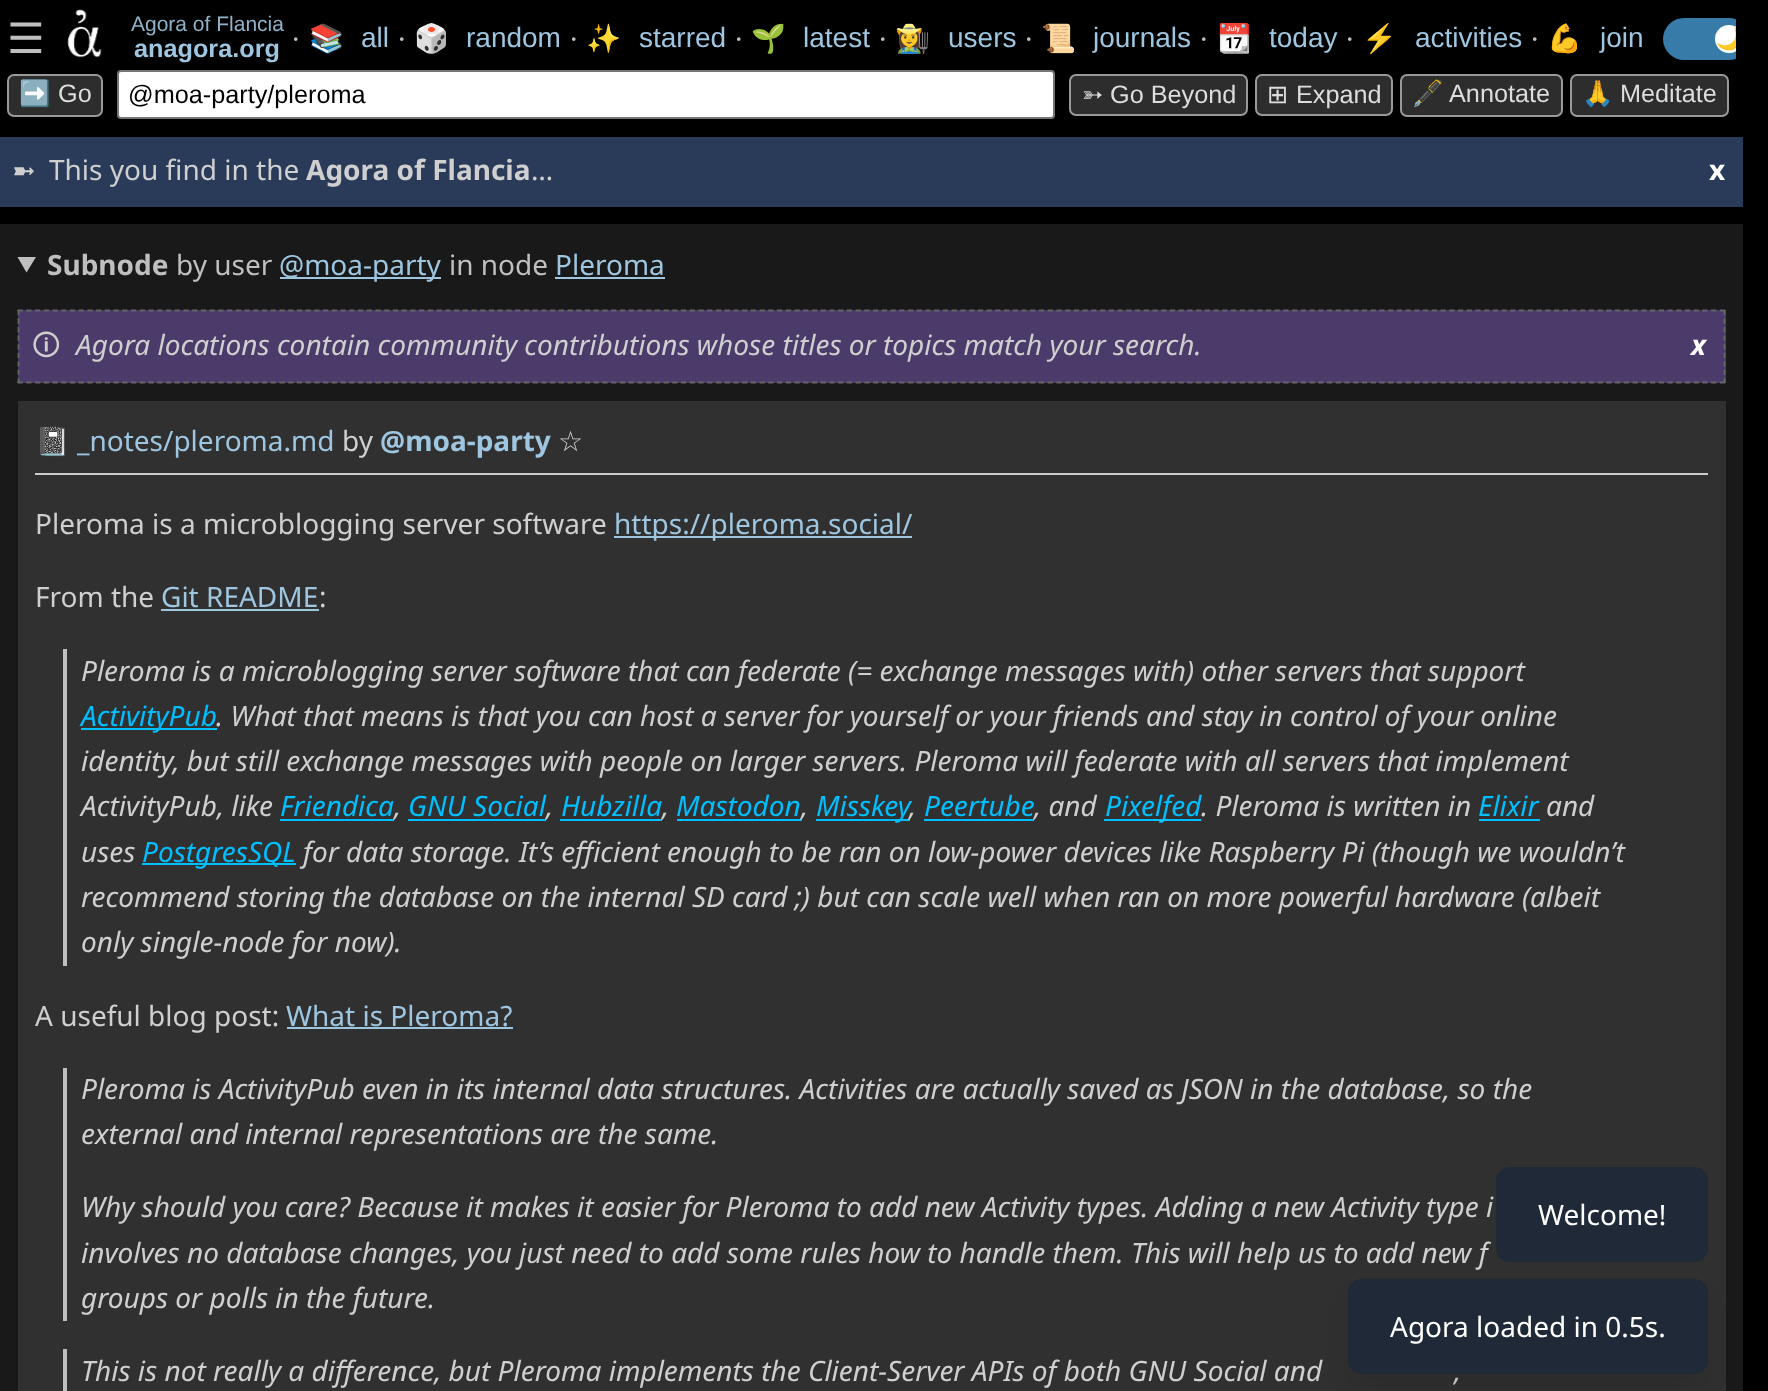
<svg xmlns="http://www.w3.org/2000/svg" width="1768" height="1391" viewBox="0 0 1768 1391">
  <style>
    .t1 { font: 42px DejaVu Sans; fill: #bfbfbf; }
    .t2 { font: 21px Liberation Sans; fill: #8fb2ca; }
    .t3 { font: bold 25.25px Liberation Sans; fill: #9fc6e0; }
    .t4 { font: 28px Noto Sans; fill: #bfbfbf; }
    .t5 { font: 28px Noto Color Emoji; fill: #9fc6e0; }
    .t6 { font: 28px Liberation Sans; fill: #9fc6e0; }
    .t7 { font: 21px Noto Color Emoji; fill: #bfbfbf; }
    .t8 { font: 25.25px Noto Color Emoji; fill: #ddd; }
    .t9 { font: 25.25px Liberation Sans; fill: #ddd; }
    .t10 { font: 25.25px Liberation Sans; fill: #000; }
    .t11 { font: 25.25px DejaVu Sans; fill: #ddd; }
    .t12 { font: 28px DejaVu Sans; fill: #cfcfcf; }
    .t13 { font: 28px Noto Sans; fill: #cfcfcf; }
    .t14 { font: bold 28px Noto Sans; fill: #cfcfcf; }
    .t15 { font: bold 28px Noto Sans; fill: #fff; }
    .t16 { font: bold 28px Noto Sans; fill: #bfbfbf; }
    .t17 { font: 28px Noto Sans; fill: #9fc6e0; }
    .t18 { font: 28px 'Noto Sans Symbols 2'; fill: #cfcfcf; }
    .t19 { font: italic 28px Noto Sans; fill: #cfcfcf; }
    .t20 { font: italic bold 28px Noto Sans; fill: #fff; }
    .t21 { font: bold 28px Noto Sans; fill: #9fc6e0; }
    .t22 { font: italic 28px Noto Sans; fill: #00bfff; }
    .t23 { font: 28px Noto Sans; fill: #fff; }
  </style>
  <defs>
    <clipPath id="clip1"><rect x="7" y="7" width="1729" height="63"/></clipPath>
  </defs>
  <rect width="100%" height="100%" fill="#000"/>
  <text x="7" y="53" class="t1">☰</text>
  <image x="67" y="9" width="35" height="49" href="images/1.png"/>
  <text x="131" y="31" class="t2">Agora of Flancia</text>
  <text x="134" y="57" class="t3">anagora.org</text>
  <text x="292" y="49" class="t4">⸱</text>
  <text x="309" y="48" class="t5">📚</text>
  <text x="361" y="47" class="t6">all</text>
  <text x="398" y="49" class="t4">⸱</text>
  <text x="414" y="48" class="t5">🎲️</text>
  <text x="466" y="47" class="t6">random</text>
  <text x="570" y="49" class="t4">⸱</text>
  <text x="586" y="48" class="t5">✨</text>
  <text x="639" y="47" class="t6">starred</text>
  <text x="735" y="49" class="t4">⸱</text>
  <text x="751" y="48" class="t5">🌱</text>
  <text x="803" y="47" class="t6">latest</text>
  <text x="879" y="49" class="t4">⸱</text>
  <text x="895" y="48" class="t5">👩‍🌾</text>
  <text x="948" y="47" class="t6">users</text>
  <text x="1025" y="49" class="t4">⸱</text>
  <text x="1041" y="48" class="t5">📜</text>
  <text x="1093" y="47" class="t6">journals</text>
  <text x="1200" y="49" class="t4">⸱</text>
  <text x="1217" y="48" class="t5">📆</text>
  <text x="1269" y="47" class="t6">today</text>
  <text x="1346" y="49" class="t4">⸱</text>
  <text x="1362" y="48" class="t5">⚡</text>
  <text x="1415" y="47" class="t6">activities</text>
  <text x="1531" y="49" class="t4">⸱</text>
  <text x="1547" y="48" class="t5">💪</text>
  <text x="1600" y="47" class="t6">join</text>
  <g clip-path="url(#clip1)">
    <rect x="1663" y="18" width="87" height="42" rx="21" fill="#377ba8"/>
    <circle cx="1729" cy="39" r="14" fill="#fff"/>
    <text x="1716" y="46" class="t7">🌙</text>
  </g>
  <rect x="8" y="75" width="94" height="41" rx="6" fill="#2d2d2d" stroke="#999" stroke-width="2"/>
  <text x="19" y="102" class="t8">➡️</text>
  <text x="58" y="102" class="t9">Go</text>
  <rect x="118" y="71" width="936" height="47" rx="3" fill="#fff" stroke="#767676" stroke-width="2"/>
  <text x="128" y="103" class="t10">@moa-party/pleroma</text>
  <rect x="1070" y="75" width="177" height="40" rx="6" fill="#2d2d2d" stroke="#999" stroke-width="2"/>
  <text x="1082" y="103" class="t11">➳</text>
  <text x="1110" y="103" class="t9">Go Beyond</text>
  <rect x="1256" y="75" width="136" height="40" rx="6" fill="#2d2d2d" stroke="#999" stroke-width="2"/>
  <text x="1267" y="103" class="t11">⊞</text>
  <text x="1296" y="103" class="t9">Expand</text>
  <rect x="1401" y="75" width="161" height="41" rx="6" fill="#2d2d2d" stroke="#999" stroke-width="2"/>
  <text x="1412" y="102" class="t8">🖋️</text>
  <text x="1449" y="102" class="t9">Annotate</text>
  <rect x="1571" y="75" width="157" height="41" rx="6" fill="#2d2d2d" stroke="#999" stroke-width="2"/>
  <text x="1582" y="102" class="t8">🙏</text>
  <text x="1620" y="102" class="t9">Meditate</text>
  <rect x="0" y="137" width="1743" height="70" fill="#2a3a59"/>
  <text x="12" y="180" class="t12">➼</text>
  <text x="49" y="180" class="t13">This you find in the</text>
  <text x="306" y="180" class="t14">Agora of Flancia</text>
  <text x="531" y="180" class="t13">…</text>
  <text x="1709" y="180" class="t15">x</text>
  <rect x="0" y="224" width="1743" height="1167" fill="#191919"/>
  <path d="M17.5 257H36L26.5 272.5Z" fill="#bfbfbf"/>
  <text x="47" y="275" class="t16">Subnode</text>
  <text x="176" y="275" class="t4">by user</text>
  <rect x="280" y="277" width="161" height="2" fill="#9fc6e0"/>
  <text x="279" y="275" class="t17">@moa-party</text>
  <text x="449" y="275" class="t4">in node</text>
  <text x="555" y="275" class="t17">Pleroma</text>
  <rect x="555" y="277" width="110" height="2" fill="#9fc6e0"/>
  <rect x="18" y="310" width="1708" height="73" fill="#4a3b6a"/>
  <path d="M17.5 310.5H1725.5" fill="none" stroke="#666" stroke-width="1.8" stroke-dasharray="5.25 3.48"/>
  <path d="M1724.5 310V383" fill="none" stroke="#666" stroke-width="1.8" stroke-dasharray="5.25 3.29"/>
  <path d="M17.5 382.5H1725.5" fill="none" stroke="#666" stroke-width="1.8" stroke-dasharray="5.25 3.48"/>
  <path d="M18.5 310V383" fill="none" stroke="#666" stroke-width="1.8" stroke-dasharray="5.25 3.29"/>
  <text x="32" y="355" class="t18">🛈</text>
  <text x="76" y="355" class="t19">Agora locations contain community contributions whose titles or topics match your search.</text>
  <text x="1691" y="355" class="t20">x</text>
  <rect x="18" y="401" width="1708" height="990" fill="#303030"/>
  <rect x="35" y="473" width="1673" height="2" fill="#ccc"/>
  <text x="35" y="451" class="t5">📓</text>
  <text x="77" y="451" class="t17">_notes/pleroma.md</text>
  <text x="342" y="451" class="t13">by</text>
  <text x="380" y="451" class="t21">@moa-party</text>
  <text x="558" y="451" class="t12">☆</text>
  <text x="35" y="534" class="t13">Pleroma is a microblogging server software</text>
  <rect x="614" y="536" width="298" height="2" fill="#9fc6e0"/>
  <text x="614" y="534" class="t17">https://pleroma.social/</text>
  <text x="35" y="607" class="t13">From the</text>
  <text x="161" y="607" class="t17">Git README</text>
  <rect x="161" y="609" width="158" height="2" fill="#9fc6e0"/>
  <text x="319" y="607" class="t13">:</text>
  <rect x="63" y="649" width="4" height="317" fill="#bfbfbf"/>
  <text x="81" y="681" class="t19">Pleroma is a microblogging server software that can federate (= exchange messages with) other servers that support</text>
  <rect x="81" y="728" width="136" height="2" fill="#00bfff"/>
  <text x="81" y="726" class="t22">ActivityPub</text>
  <text x="216" y="726" class="t19">. What that means is that you can host a server for yourself or your friends and stay in control of your online</text>
  <text x="81" y="771" class="t19">identity, but still exchange messages with people on larger servers. Pleroma will federate with all servers that implement</text>
  <text x="81" y="816" class="t19">ActivityPub, like</text>
  <text x="280" y="816" class="t22">Friendica</text>
  <rect x="280" y="819" width="114" height="2" fill="#00bfff"/>
  <text x="394" y="816" class="t19">,</text>
  <text x="408" y="816" class="t22">GNU Social</text>
  <rect x="408" y="819" width="138" height="2" fill="#00bfff"/>
  <text x="546" y="816" class="t19">,</text>
  <text x="561" y="816" class="t22">Hubzilla</text>
  <rect x="560" y="819" width="102" height="2" fill="#00bfff"/>
  <text x="662" y="816" class="t19">,</text>
  <text x="676" y="816" class="t22">Mastodon</text>
  <rect x="677" y="819" width="125" height="2" fill="#00bfff"/>
  <text x="801" y="816" class="t19">,</text>
  <rect x="816" y="819" width="94" height="2" fill="#00bfff"/>
  <text x="816" y="816" class="t22">Misskey</text>
  <text x="924" y="816" class="t22">Peertube</text>
  <rect x="924" y="819" width="110" height="2" fill="#00bfff"/>
  <text x="1034" y="816" class="t19">, and</text>
  <rect x="1104" y="819" width="97" height="2" fill="#00bfff"/>
  <text x="1105" y="816" class="t22">Pixelfed</text>
  <text x="1201" y="816" class="t19">. Pleroma is written in</text>
  <text x="1478" y="816" class="t22">Elixir</text>
  <rect x="1479" y="819" width="61" height="2" fill="#00bfff"/>
  <text x="1546" y="816" class="t19">and</text>
  <text x="909" y="816" class="t19">,</text>
  <text x="81" y="862" class="t19">uses</text>
  <rect x="142" y="863" width="154" height="2" fill="#00bfff"/>
  <text x="142" y="862" class="t22">PostgresSQL</text>
  <text x="303" y="862" class="t19">for data storage. It’s efficient enough to be ran on low-power devices like Raspberry Pi (though we wouldn’t</text>
  <text x="81" y="907" class="t19">recommend storing the database on the internal SD card ;) but can scale well when ran on more powerful hardware (albeit</text>
  <text x="81" y="952" class="t19">only single-node for now).</text>
  <text x="35" y="1026" class="t13">A useful blog post:</text>
  <text x="286" y="1026" class="t17">What is Pleroma?</text>
  <rect x="287" y="1027" width="226" height="2" fill="#9fc6e0"/>
  <rect x="63" y="1068" width="4" height="253" fill="#bfbfbf"/>
  <text x="81" y="1099" class="t19">Pleroma is ActivityPub even in its internal data structures. Activities are actually saved as JSON in the database, so the</text>
  <text x="81" y="1144" class="t19">external and internal representations are the same.</text>
  <text x="81" y="1217" class="t19">Why should you care? Because it makes it easier for Pleroma to add new Activity types. Adding a new Activity type i</text>
  <text x="81" y="1263" class="t19">involves no database changes, you just need to add some rules how to handle them. This will help us to add new f</text>
  <text x="81" y="1308" class="t19">groups or polls in the future.</text>
  <rect x="63" y="1349" width="4" height="42" fill="#bfbfbf"/>
  <text x="81" y="1381" class="t19">This is not really a difference, but Pleroma implements the Client-Server APIs of both GNU Social and</text>
  <text x="1454" y="1381" class="t19">,</text>
  <rect x="1496" y="1167" width="212" height="95" rx="14" fill="#1f2937"/>
  <text x="1538" y="1225" class="t23">Welcome!</text>
  <rect x="1353" y="1302" width="350" height="84" rx="9" fill="#0000001a" filter="blur(13px)"/>
  <rect x="1348" y="1279" width="360" height="95" rx="14" fill="#1f2937"/>
  <text x="1390" y="1337" class="t23">Agora loaded in 0.5s.</text>
</svg>
